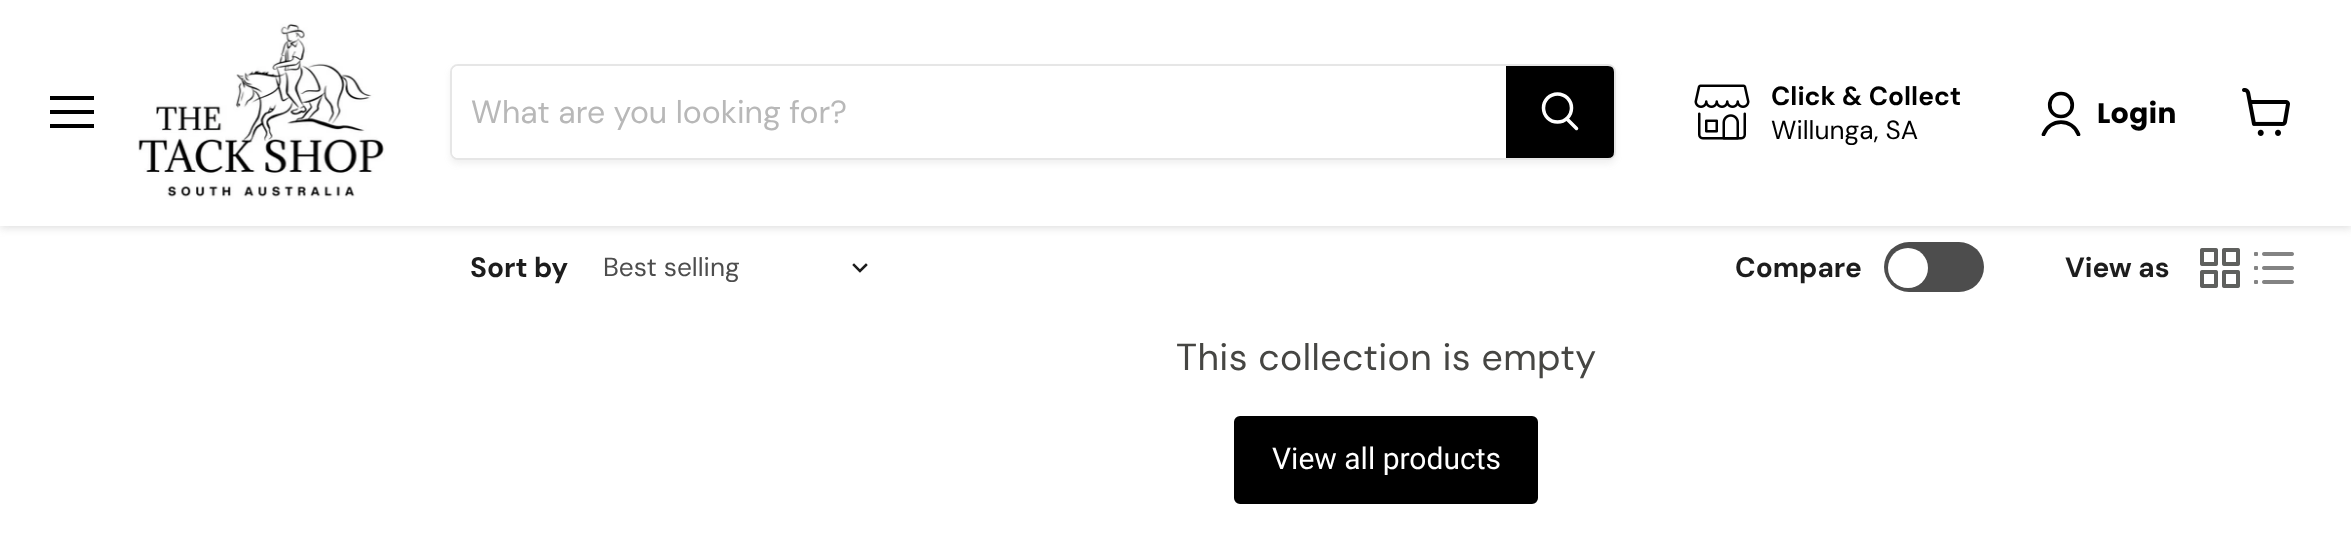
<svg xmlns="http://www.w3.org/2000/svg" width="2351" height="557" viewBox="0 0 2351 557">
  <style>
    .t1 { font: 32px 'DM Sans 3'; fill: #b8b8b8; }
    .t2 { font: bold 26.25px 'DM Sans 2'; fill: #000; }
    .t3 { font: 26.25px 'DM Sans 2'; fill: #000; }
    .t4 { font: bold 28px Poppins; letter-spacing: 0.5px; fill: #000; }
    .t5 { font: bold 28px DM Sans; fill: #1d1d1d; }
    .t6 { font: 26.25px 'DM Sans 2'; fill: #4d4d4d; }
    .t7 { font: 37.5px DM Sans; letter-spacing: 0.4px; fill: #464643; }
    .t8 { font: 30px Roboto; fill: #fff; }
  </style>
  <defs>
    <clipPath id="clip1"><path d="M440 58H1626V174H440ZM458 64H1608C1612.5 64 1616 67.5 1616 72V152C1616 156.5 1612.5 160 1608 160H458C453.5 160 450 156.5 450 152V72C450 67.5 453.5 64 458 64Z" clip-rule="evenodd"/></clipPath>
    <clipPath id="clip2"><rect x="2040" y="90" width="42" height="46"/></clipPath>
  </defs>
  <rect width="100%" height="100%" fill="#fff"/>
  <rect x="0" y="2" width="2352" height="226" fill="#80808040" filter="blur(4px)"/>
  <rect x="0" y="0" width="2351" height="226" fill="#fff"/>
  <rect x="50" y="96" width="44" height="4" fill="#000"/>
  <rect x="50" y="110" width="44" height="4" fill="#000"/>
  <rect x="50" y="124" width="44" height="4" fill="#000"/>
  <image x="138" y="23" width="247" height="176" href="images/1.png"/>
  <g clip-path="url(#clip1)">
    <rect x="450" y="68" width="1166" height="96" rx="8" fill="#8080801c" filter="blur(3px)"/>
  </g>
  <rect x="451" y="65" width="1164" height="94" rx="7" fill="none" stroke="#80808033" stroke-width="2"/>
  <path d="M458 66H1506V158H458C454.5 158 452 155.5 452 152V72C452 68.5 454.5 66 458 66Z" fill="#fff"/>
  <text x="471" y="123" class="t1">What are you looking for?</text>
  <path d="M1507 67H1608C1611 67 1613 69 1613 72V152C1613 155 1611 157 1608 157H1507Z" fill="#000" stroke="#000" stroke-width="2"/>
  <path d="M1576.5 128.5L1567 119" fill="none" stroke="#fff" stroke-width="3.5" stroke-linecap="round"/>
  <circle cx="1557.5" cy="108" r="14" fill="none" stroke="#fff" stroke-width="3.5"/>
  <image x="1694" y="84" width="56" height="56" href="images/2.png"/>
  <text x="1771" y="105" class="t2">Click &amp; Collect</text>
  <text x="1771" y="139" class="t3">Willunga, SA</text>
  <path d="M2061 116.5C2076 116.5 2076 93.5 2061 93.5C2046 93.5 2046 116.5 2061 116.5Z" fill="none" stroke="#000" stroke-width="3.7" stroke-linecap="round" stroke-linejoin="round"/>
  <g clip-path="url(#clip2)">
    <path d="M2078.5 134.5C2072.5 118 2049.5 118 2043.5 134.5" fill="none" stroke="#000" stroke-width="3.7" stroke-linecap="round" stroke-linejoin="round"/>
  </g>
  <text x="2097" y="123" class="t4">Login</text>
  <image x="2242" y="88" width="48" height="48" href="images/3.png"/>
  <text x="470" y="277" class="t5">Sort by</text>
  <text x="603" y="276" class="t6">Best selling</text>
  <path d="M860 271L866 265M860 271L854 265" fill="none" stroke="#1d1d1d" stroke-width="2.5" stroke-linecap="square"/>
  <text x="1735" y="277" class="t5">Compare</text>
  <rect x="1884" y="242" width="100" height="50" rx="25" fill="#4d4d4d"/>
  <circle cx="1908" cy="268" r="20" fill="#fff"/>
  <text x="2065" y="277" class="t5">View as</text>
  <image x="2200" y="248" width="40" height="40" href="images/4.png"/>
  <image x="2254" y="252" width="40" height="32" href="images/5.png"/>
  <text x="1176" y="370" class="t7">This collection is empty</text>
  <rect x="1235" y="417" width="302" height="86" rx="5" fill="#000" stroke="#000" stroke-width="2"/>
  <text x="1272" y="469" class="t8">View all products</text>
</svg>
